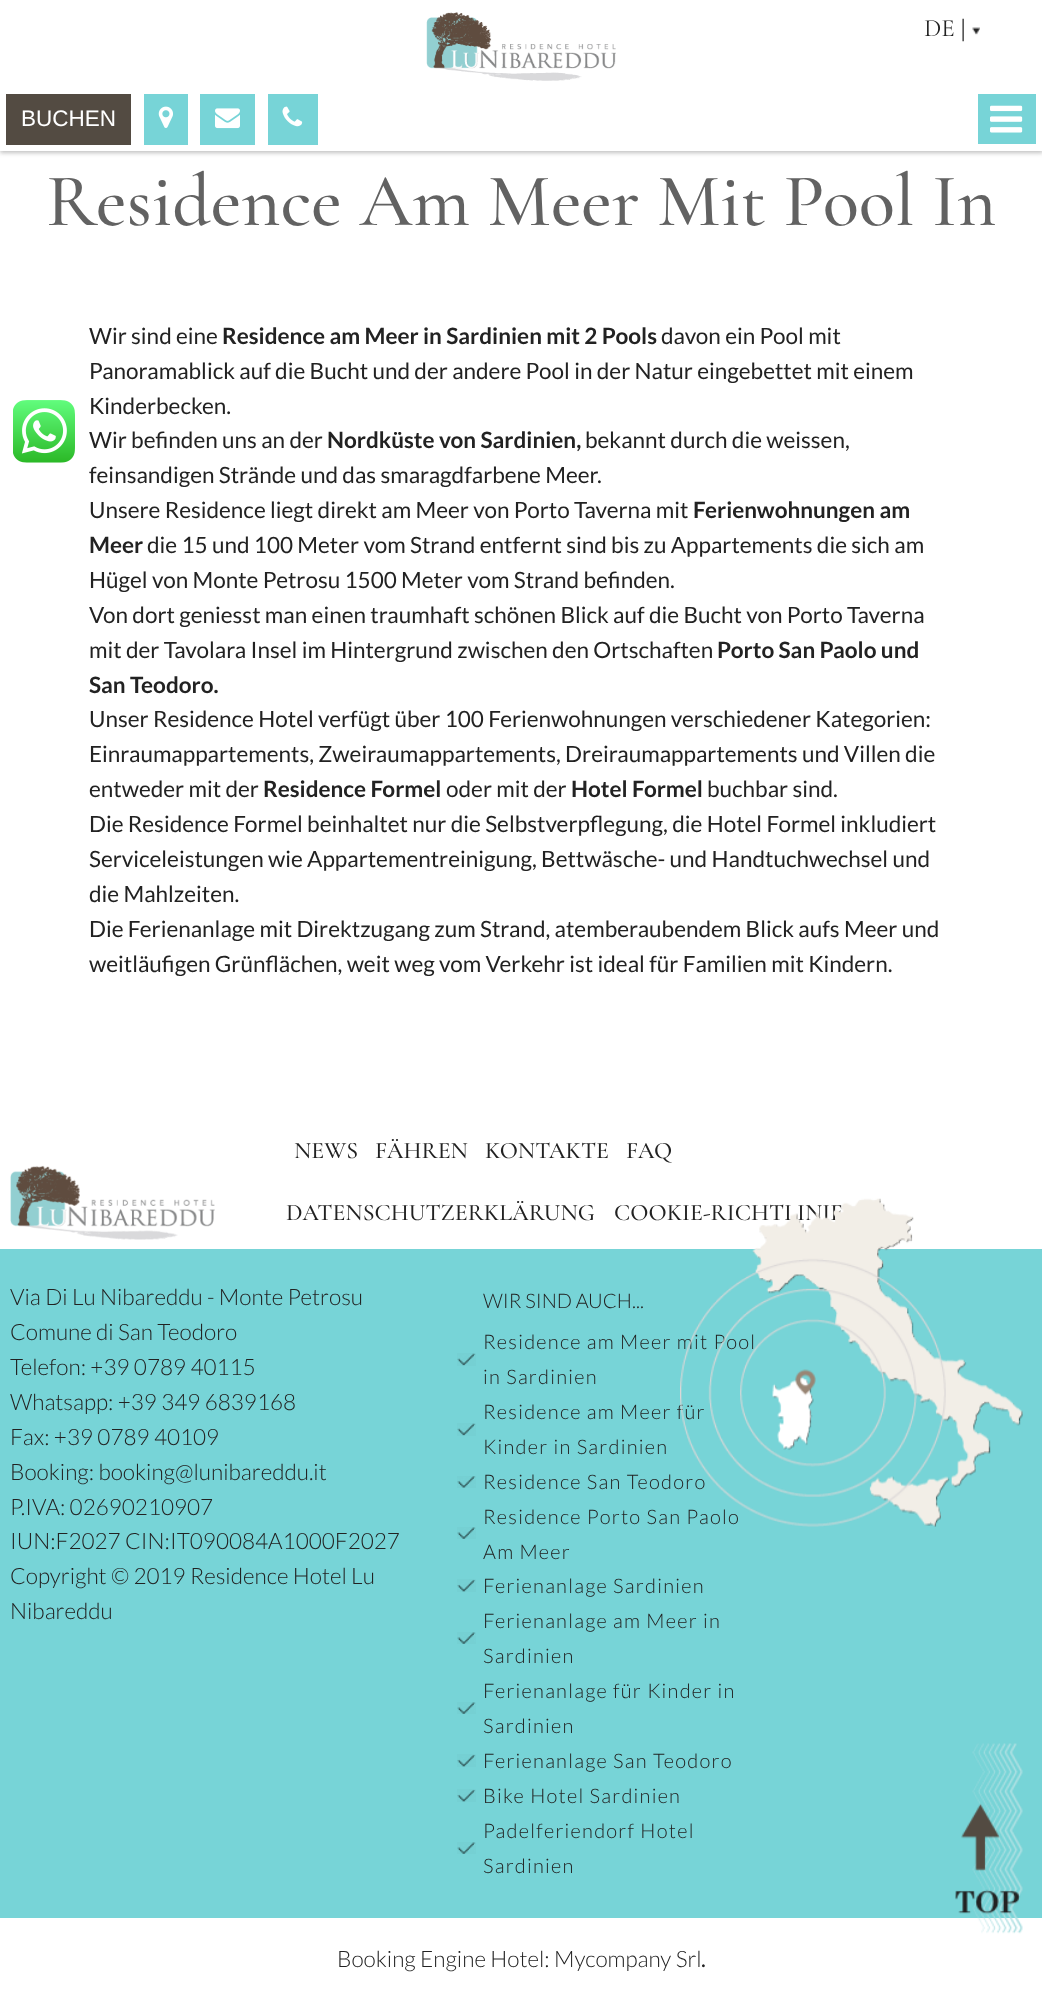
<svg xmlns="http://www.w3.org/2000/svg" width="1042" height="1997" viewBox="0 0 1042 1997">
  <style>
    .t1 { font: 25px Cormorant Garamond; fill: #222; }
    .t2 { font: 22.5px Liberation Sans; fill: #fff; }
    .t3 { font: 500 75px Cormorant Garamond; fill: #626262; }
    .t4 { font: 22.5px Lato; fill: #222; }
    .t5 { font: bold 22.5px Lato; fill: #222; }
    .t6 { font: 500 23.75px Cormorant Garamond; fill: #222; }
    .t7 { font: 300 22.5px Lato; fill: #222; }
    .t8 { font: 300 20px Lato; fill: #222; }
    .t9 { font: 300 20px Lato; letter-spacing: 1.25px; fill: #222; }
  </style>
  <rect width="100%" height="100%" fill="#fff"/>
  <rect x="0" y="1" width="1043" height="152" fill="#3232324d" filter="blur(2px)"/>
  <rect x="0" y="0" width="1042" height="151" fill="#fff"/>
  <image x="426" y="12" width="190" height="69" href="images/1.png"/>
  <text x="924" y="36" class="t1">DE</text>
  <image x="962" y="18" width="18" height="24" href="images/2.png"/>
  <rect x="6" y="94" width="125" height="51" fill="#534b42"/>
  <text x="21" y="126" class="t2">BUCHEN</text>
  <rect x="144" y="94" width="44" height="51" fill="#77d4d7"/>
  <image x="158" y="106" width="15" height="22" href="images/3.png"/>
  <rect x="200" y="94" width="55" height="51" fill="#77d4d7"/>
  <image x="215" y="108" width="25" height="21" href="images/4.png"/>
  <rect x="268" y="94" width="50" height="51" fill="#77d4d7"/>
  <image x="282" y="106" width="21" height="21" href="images/5.png"/>
  <rect x="978" y="94" width="58" height="50" fill="#77d4d7"/>
  <image x="990" y="105" width="33" height="28" href="images/6.png"/>
  <text x="46" y="225" class="t3">Residence Am Meer Mit Pool In</text>
  <text x="89" y="344" class="t4">Wir sind eine</text>
  <text x="222" y="344" class="t5">Residence am Meer in Sardinien mit 2 Pools</text>
  <text x="661" y="344" class="t4">davon ein Pool mit</text>
  <text x="89" y="379" class="t4">Panoramablick auf die Bucht und der andere Pool in der Natur eingebettet mit einem</text>
  <text x="89" y="414" class="t4">Kinderbecken.</text>
  <text x="89" y="448" class="t4">Wir befinden uns an der</text>
  <text x="327" y="448" class="t5">Nordküste von Sardinien,</text>
  <text x="585" y="448" class="t4">bekannt durch die weissen,</text>
  <text x="89" y="483" class="t4">feinsandigen Strände und das smaragdfarbene Meer.</text>
  <text x="89" y="518" class="t4">Unsere Residence liegt direkt am Meer von Porto Taverna mit</text>
  <text x="693" y="518" class="t5">Ferienwohnungen am</text>
  <text x="89" y="553" class="t5">Meer</text>
  <text x="147" y="553" class="t4">die 15 und 100 Meter vom Strand entfernt sind bis zu Appartements die sich am</text>
  <text x="89" y="588" class="t4">Hügel von Monte Petrosu 1500 Meter vom Strand befinden.</text>
  <text x="89" y="623" class="t4">Von dort geniesst man einen traumhaft schönen Blick auf die Bucht von Porto Taverna</text>
  <text x="89" y="658" class="t4">mit der Tavolara Insel im Hintergrund zwischen den Ortschaften</text>
  <text x="717" y="658" class="t5">Porto San Paolo und</text>
  <text x="89" y="693" class="t5">San Teodoro.</text>
  <text x="89" y="727" class="t4">Unser Residence Hotel verfügt über 100 Ferienwohnungen verschiedener Kategorien:</text>
  <text x="89" y="762" class="t4">Einraumappartements, Zweiraumappartements, Dreiraumappartements und Villen die</text>
  <text x="89" y="797" class="t4">entweder mit der</text>
  <text x="263" y="797" class="t5">Residence Formel</text>
  <text x="446" y="797" class="t4">oder mit der</text>
  <text x="571" y="797" class="t5">Hotel Formel</text>
  <text x="707" y="797" class="t4">buchbar sind.</text>
  <text x="89" y="832" class="t4">Die Residence Formel beinhaltet nur die Selbstverpflegung, die Hotel Formel inkludiert</text>
  <text x="89" y="867" class="t4">Serviceleistungen wie Appartementreinigung, Bettwäsche- und Handtuchwechsel und</text>
  <text x="89" y="902" class="t4">die Mahlzeiten.</text>
  <text x="89" y="937" class="t4">Die Ferienanlage mit Direktzugang zum Strand, atemberaubendem Blick aufs Meer und</text>
  <text x="89" y="972" class="t4">weitläufigen Grünflächen, weit weg vom Verkehr ist ideal für Familien mit Kindern.</text>
  <text x="294" y="1158" class="t6">NEWS</text>
  <text x="375" y="1158" class="t6">FÄHREN</text>
  <text x="485" y="1158" class="t6">KONTAKTE</text>
  <text x="626" y="1158" class="t6">FAQ</text>
  <image x="10" y="1165" width="205" height="75" href="images/7.png"/>
  <text x="286" y="1220" class="t6">DATENSCHUTZERKLÄRUNG</text>
  <text x="614" y="1220" class="t6">COOKIE-RICHTLINIE</text>
  <rect x="0" y="1249" width="1042" height="669" fill="#77d4d7"/>
  <text x="10" y="1305" class="t7">Via Di Lu Nibareddu - Monte Petrosu</text>
  <text x="10" y="1340" class="t7">Comune di San Teodoro</text>
  <text x="10" y="1375" class="t7">Telefon: +39 0789 40115</text>
  <text x="10" y="1410" class="t7">Whatsapp: +39 349 6839168</text>
  <text x="10" y="1445" class="t7">Fax: +39 0789 40109</text>
  <text x="10" y="1480" class="t7">Booking: booking@lunibareddu.it</text>
  <text x="10" y="1515" class="t7">P.IVA: 02690210907</text>
  <text x="10" y="1549" class="t7">IUN:F2027 CIN:IT090084A1000F2027</text>
  <text x="10" y="1584" class="t7">Copyright © 2019 Residence Hotel Lu</text>
  <text x="10" y="1619" class="t7">Nibareddu</text>
  <text x="483" y="1308" class="t8">WIR SIND AUCH...</text>
  <image x="457" y="1353" width="19" height="13" href="images/8.png"/>
  <text x="483" y="1349" class="t9">Residence am Meer mit Pool</text>
  <text x="483" y="1384" class="t9">in Sardinien</text>
  <image x="457" y="1423" width="19" height="13" href="images/8.png"/>
  <text x="483" y="1419" class="t9">Residence am Meer für</text>
  <text x="483" y="1454" class="t9">Kinder in Sardinien</text>
  <image x="457" y="1476" width="19" height="12" href="images/9.png"/>
  <text x="483" y="1489" class="t9">Residence San Teodoro</text>
  <image x="457" y="1527" width="19" height="12" href="images/10.png"/>
  <text x="483" y="1524" class="t9">Residence Porto San Paolo</text>
  <text x="483" y="1559" class="t9">Am Meer</text>
  <image x="457" y="1579" width="19" height="13" href="images/11.png"/>
  <text x="483" y="1593" class="t9">Ferienanlage Sardinien</text>
  <image x="457" y="1632" width="19" height="12" href="images/10.png"/>
  <text x="483" y="1628" class="t9">Ferienanlage am Meer in</text>
  <text x="483" y="1663" class="t9">Sardinien</text>
  <image x="457" y="1702" width="19" height="12" href="images/10.png"/>
  <text x="483" y="1698" class="t9">Ferienanlage für Kinder in</text>
  <text x="483" y="1733" class="t9">Sardinien</text>
  <image x="457" y="1754" width="19" height="13" href="images/11.png"/>
  <text x="483" y="1768" class="t9">Ferienanlage San Teodoro</text>
  <image x="457" y="1789" width="19" height="13" href="images/11.png"/>
  <text x="483" y="1803" class="t9">Bike Hotel Sardinien</text>
  <image x="457" y="1842" width="19" height="12" href="images/10.png"/>
  <text x="483" y="1838" class="t9">Padelferiendorf Hotel</text>
  <text x="483" y="1873" class="t9">Sardinien</text>
  <image x="680" y="1198" width="343" height="329" href="images/12.png"/>
  <image x="955" y="1743" width="68" height="191" href="images/13.png"/>
  <text x="337" y="1967" class="t7">Booking Engine Hotel: Mycompany Srl</text>
  <text x="701" y="1967" class="t4">.</text>
  <image x="13" y="400" width="62" height="63" href="images/14.png"/>
</svg>
